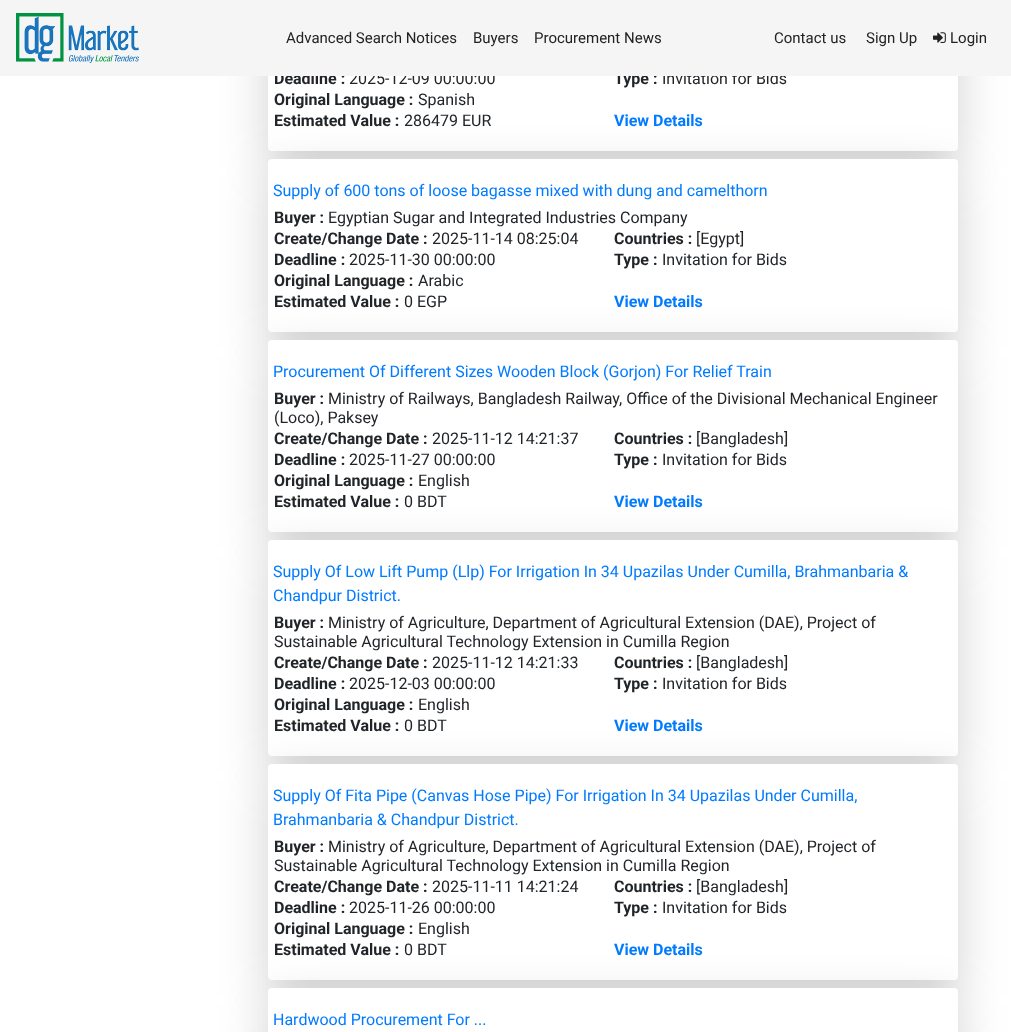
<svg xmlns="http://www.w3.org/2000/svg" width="1011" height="1032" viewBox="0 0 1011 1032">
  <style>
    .t1 { font: bold 16px Roboto; fill: #212529; }
    .t2 { font: 16px Roboto; fill: #212529; }
    .t3 { font: 15px Roboto; fill: #222; }
    .t4 { font: bold 16px Roboto; fill: #007bff; }
    .t5 { font: 16px Roboto; fill: #007bff; }
  </style>
  <rect width="100%" height="100%" fill="#fff"/>
  <rect x="268" y="-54" width="690" height="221" rx="4" fill="#0000002e" filter="blur(24px)"/>
  <rect x="268" y="-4" width="690" height="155" rx="4" fill="#fff"/>
  <text x="274" y="84" class="t1">Deadline :</text>
  <text x="349" y="84" class="t2">2025-12-09 00:00:00</text>
  <text x="614" y="84" class="t1">Type :</text>
  <text x="662" y="84" class="t2">Invitation for Bids</text>
  <rect x="0" y="0" width="1011" height="76" fill="#f5f5f5"/>
  <image x="16" y="13" width="123" height="50" href="images/1.png"/>
  <text x="286" y="43" class="t3">Advanced Search Notices</text>
  <text x="473" y="43" class="t3">Buyers</text>
  <text x="534" y="43" class="t3">Procurement News</text>
  <text x="774" y="43" class="t3">Contact us</text>
  <text x="866" y="43" class="t3">Sign Up</text>
  <image x="933" y="32" width="13" height="11" href="images/2.png"/>
  <text x="950" y="43" class="t3">Login</text>
  <text x="274" y="105" class="t1">Original Language :</text>
  <text x="418" y="105" class="t2">Spanish</text>
  <text x="274" y="126" class="t1">Estimated Value :</text>
  <text x="404" y="126" class="t2">286479 EUR</text>
  <text x="614" y="126" class="t4">View Details</text>
  <rect x="268" y="175" width="690" height="173" rx="4" fill="#0000002e" filter="blur(24px)"/>
  <rect x="268" y="159" width="690" height="173" rx="4" fill="#fff"/>
  <text x="273" y="196" class="t5">Supply of 600 tons of loose bagasse mixed with dung and camelthorn</text>
  <text x="274" y="223" class="t1">Buyer :</text>
  <text x="328" y="223" class="t2">Egyptian Sugar and Integrated Industries Company</text>
  <text x="274" y="244" class="t1">Create/Change Date :</text>
  <text x="432" y="244" class="t2">2025-11-14 08:25:04</text>
  <text x="614" y="244" class="t1">Countries :</text>
  <text x="696" y="244" class="t2">[Egypt]</text>
  <text x="274" y="265" class="t1">Deadline :</text>
  <text x="349" y="265" class="t2">2025-11-30 00:00:00</text>
  <text x="614" y="265" class="t1">Type :</text>
  <text x="662" y="265" class="t2">Invitation for Bids</text>
  <text x="274" y="286" class="t1">Original Language :</text>
  <text x="418" y="286" class="t2">Arabic</text>
  <text x="274" y="307" class="t1">Estimated Value :</text>
  <text x="404" y="307" class="t2">0 EGP</text>
  <text x="614" y="307" class="t4">View Details</text>
  <rect x="268" y="356" width="690" height="192" rx="4" fill="#0000002e" filter="blur(24px)"/>
  <rect x="268" y="340" width="690" height="192" rx="4" fill="#fff"/>
  <text x="273" y="377" class="t5">Procurement Of Different Sizes Wooden Block (Gorjon) For Relief Train</text>
  <text x="274" y="404" class="t1">Buyer :</text>
  <text x="328" y="404" class="t2">Ministry of Railways, Bangladesh Railway, Office of the Divisional Mechanical Engineer</text>
  <text x="274" y="423" class="t2">(Loco), Paksey</text>
  <text x="274" y="444" class="t1">Create/Change Date :</text>
  <text x="432" y="444" class="t2">2025-11-12 14:21:37</text>
  <text x="614" y="444" class="t1">Countries :</text>
  <text x="696" y="444" class="t2">[Bangladesh]</text>
  <text x="274" y="465" class="t1">Deadline :</text>
  <text x="349" y="465" class="t2">2025-11-27 00:00:00</text>
  <text x="614" y="465" class="t1">Type :</text>
  <text x="662" y="465" class="t2">Invitation for Bids</text>
  <text x="274" y="486" class="t1">Original Language :</text>
  <text x="418" y="486" class="t2">English</text>
  <text x="274" y="507" class="t1">Estimated Value :</text>
  <text x="404" y="507" class="t2">0 BDT</text>
  <text x="614" y="507" class="t4">View Details</text>
  <rect x="268" y="556" width="690" height="216" rx="4" fill="#0000002e" filter="blur(24px)"/>
  <rect x="268" y="540" width="690" height="216" rx="4" fill="#fff"/>
  <text x="273" y="577" class="t5">Supply Of Low Lift Pump (Llp) For Irrigation In 34 Upazilas Under Cumilla, Brahmanbaria &amp;</text>
  <text x="273" y="601" class="t5">Chandpur District.</text>
  <text x="274" y="628" class="t1">Buyer :</text>
  <text x="328" y="628" class="t2">Ministry of Agriculture, Department of Agricultural Extension (DAE), Project of</text>
  <text x="274" y="647" class="t2">Sustainable Agricultural Technology Extension in Cumilla Region</text>
  <text x="274" y="668" class="t1">Create/Change Date :</text>
  <text x="432" y="668" class="t2">2025-11-12 14:21:33</text>
  <text x="614" y="668" class="t1">Countries :</text>
  <text x="696" y="668" class="t2">[Bangladesh]</text>
  <text x="274" y="689" class="t1">Deadline :</text>
  <text x="349" y="689" class="t2">2025-12-03 00:00:00</text>
  <text x="614" y="689" class="t1">Type :</text>
  <text x="662" y="689" class="t2">Invitation for Bids</text>
  <text x="274" y="710" class="t1">Original Language :</text>
  <text x="418" y="710" class="t2">English</text>
  <text x="274" y="731" class="t1">Estimated Value :</text>
  <text x="404" y="731" class="t2">0 BDT</text>
  <text x="614" y="731" class="t4">View Details</text>
  <rect x="268" y="780" width="690" height="216" rx="4" fill="#0000002e" filter="blur(24px)"/>
  <rect x="268" y="764" width="690" height="216" rx="4" fill="#fff"/>
  <text x="273" y="801" class="t5">Supply Of Fita Pipe (Canvas Hose Pipe) For Irrigation In 34 Upazilas Under Cumilla,</text>
  <text x="273" y="825" class="t5">Brahmanbaria &amp; Chandpur District.</text>
  <text x="274" y="852" class="t1">Buyer :</text>
  <text x="328" y="852" class="t2">Ministry of Agriculture, Department of Agricultural Extension (DAE), Project of</text>
  <text x="274" y="871" class="t2">Sustainable Agricultural Technology Extension in Cumilla Region</text>
  <text x="274" y="892" class="t1">Create/Change Date :</text>
  <text x="432" y="892" class="t2">2025-11-11 14:21:24</text>
  <text x="614" y="892" class="t1">Countries :</text>
  <text x="696" y="892" class="t2">[Bangladesh]</text>
  <text x="274" y="913" class="t1">Deadline :</text>
  <text x="349" y="913" class="t2">2025-11-26 00:00:00</text>
  <text x="614" y="913" class="t1">Type :</text>
  <text x="662" y="913" class="t2">Invitation for Bids</text>
  <text x="274" y="934" class="t1">Original Language :</text>
  <text x="418" y="934" class="t2">English</text>
  <text x="274" y="955" class="t1">Estimated Value :</text>
  <text x="404" y="955" class="t2">0 BDT</text>
  <text x="614" y="955" class="t4">View Details</text>
  <rect x="268" y="1004" width="690" height="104" rx="4" fill="#0000002e" filter="blur(24px)"/>
  <rect x="268" y="988" width="690" height="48" rx="4" fill="#fff"/>
  <text x="273" y="1025" class="t5">Hardwood Procurement For ...</text>
</svg>
